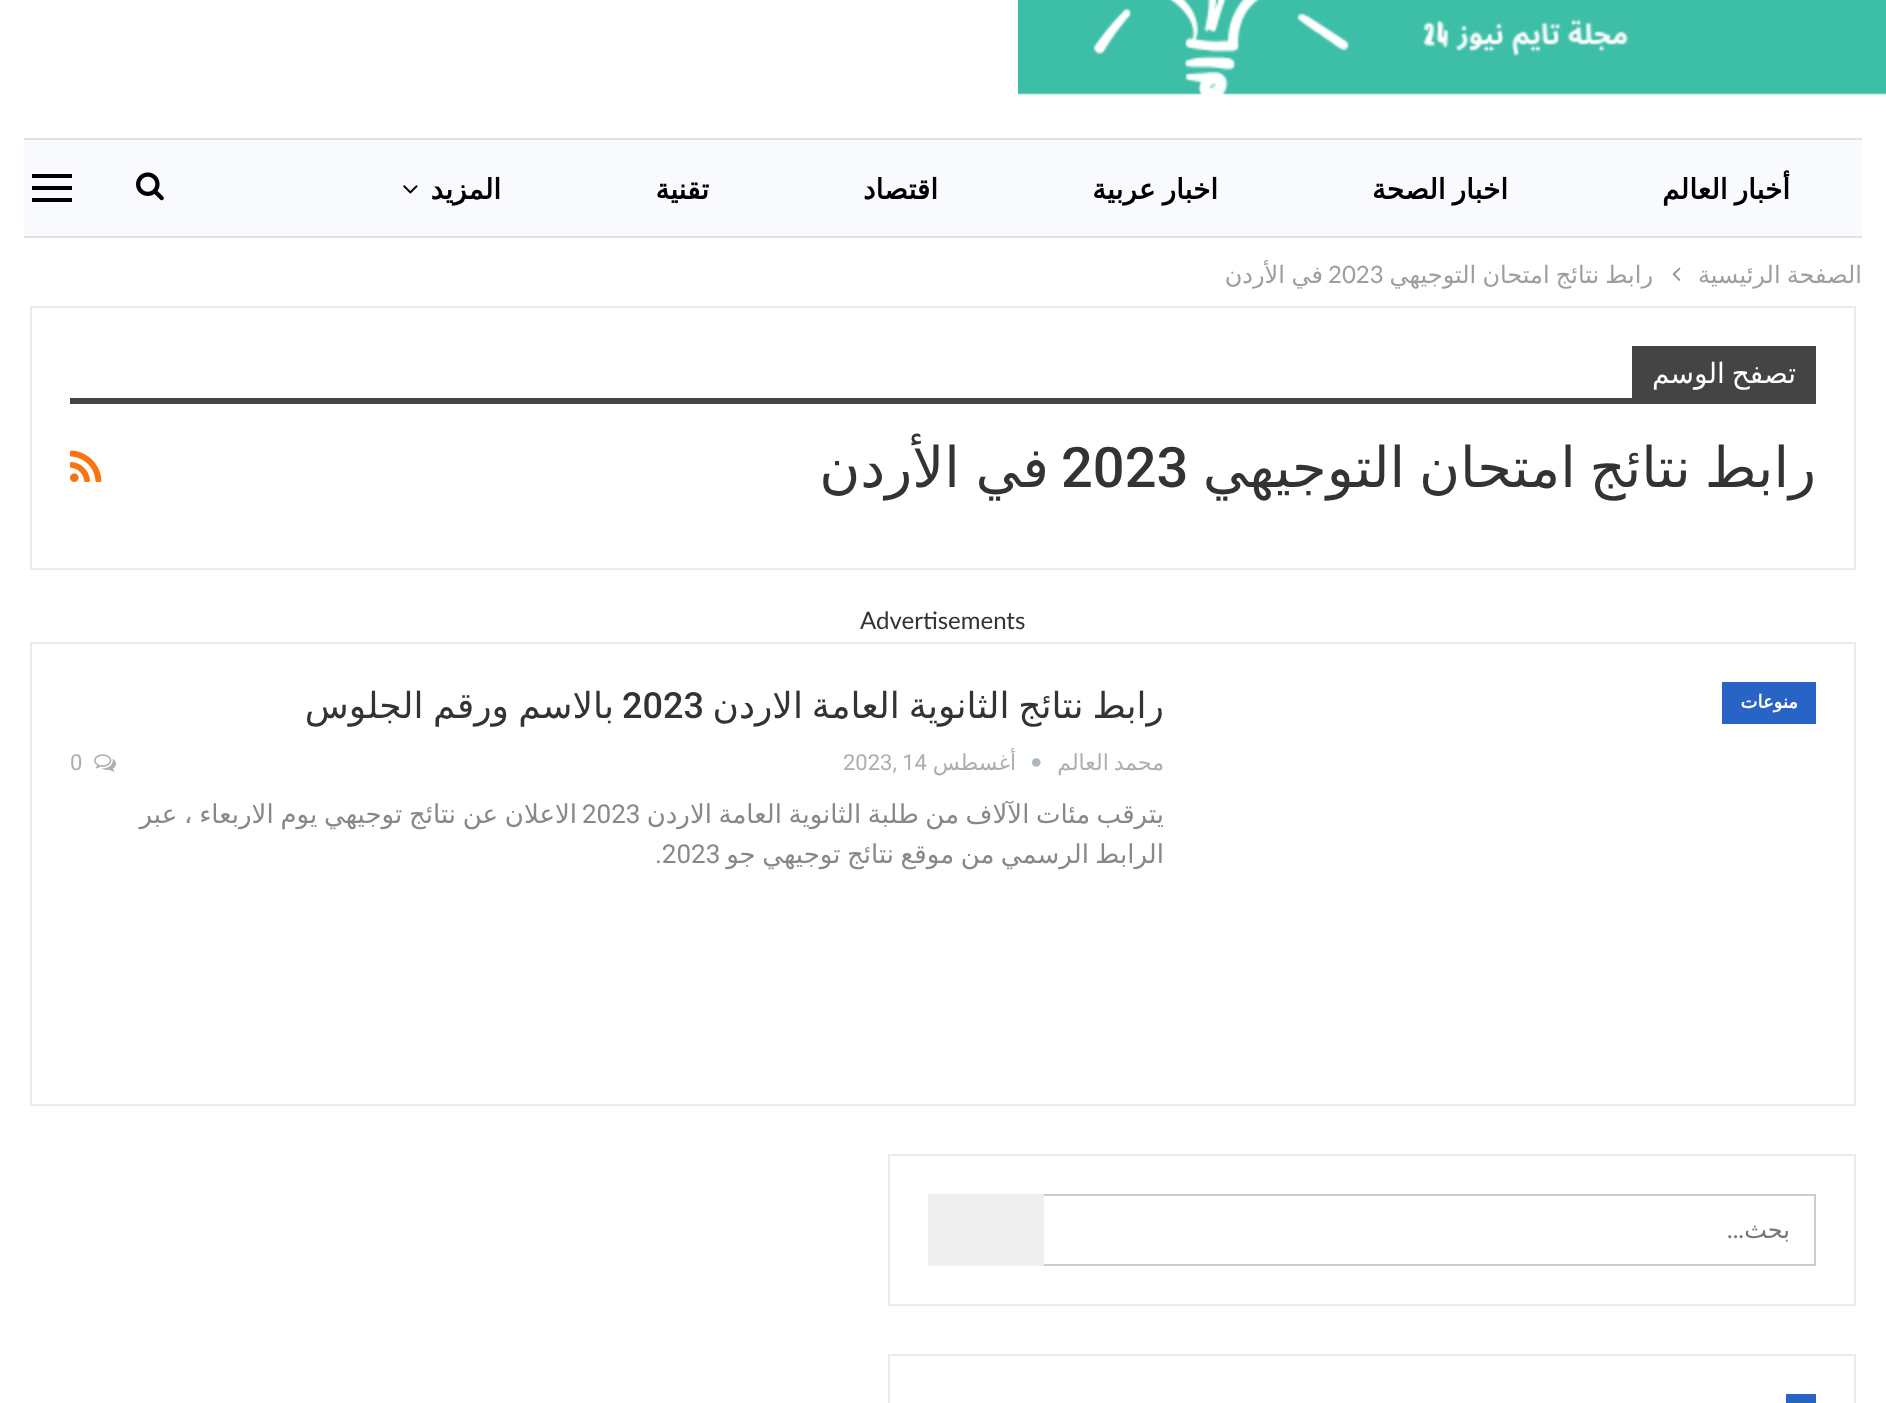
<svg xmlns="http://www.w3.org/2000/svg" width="1886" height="1403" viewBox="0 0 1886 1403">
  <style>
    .t1 { font: bold 28px DejaVu Sans; direction: rtl; fill: #000; }
    .t2 { font: 24px DejaVu Sans; direction: rtl; fill: #9e9e9e; }
    .t3 { font: 24px Lato; fill: #9e9e9e; }
    .t4 { font: 28px DejaVu Sans; direction: rtl; fill: #fff; }
    .t5 { font: 56px DejaVu Sans; direction: rtl; fill: #333; }
    .t6 { font: 500 56px Roboto; fill: #333; }
    .t7 { font: 24px Lato; fill: #333; }
    .t8 { font: bold 18px DejaVu Sans; direction: rtl; fill: #fff; }
    .t9 { font: 36px DejaVu Sans; direction: rtl; fill: #333; }
    .t10 { font: 500 36px Roboto; fill: #333; }
    .t11 { font: 22px DejaVu Sans; direction: rtl; fill: #aeaeae; }
    .t12 { font: 22px Roboto; fill: #aeaeae; }
    .t13 { font: 26px DejaVu Sans; direction: rtl; fill: #888; }
    .t14 { font: 26px Roboto; fill: #888; }
    .t15 { font: 24px DejaVu Sans; direction: rtl; fill: #757575; }
    .t16 { font: 24px Lato; direction: rtl; fill: #757575; }
  </style>
  <rect width="100%" height="100%" fill="#fff"/>
  <image x="1018" y="0" width="868" height="95" href="images/1.png"/>
  <rect x="24" y="140" width="1838" height="96" fill="#f9fafd"/>
  <rect x="24" y="138" width="1838" height="2" fill="#e0e1e3"/>
  <rect x="24" y="236" width="1838" height="2" fill="#e0e1e3"/>
  <text x="1790" y="199" word-spacing="-2" class="t1">أخبار العالم</text>
  <text x="1508" y="199" word-spacing="-2" class="t1">اخبار الصحة</text>
  <text x="1218" y="199" word-spacing="-2" class="t1">اخبار عربية</text>
  <text x="938" y="199" class="t1">اقتصاد</text>
  <text x="709" y="199" class="t1">تقنية</text>
  <text x="501" y="199" class="t1">المزيد</text>
  <image x="403" y="185" width="15" height="9" href="images/2.png"/>
  <image x="136" y="172" width="28" height="29" href="images/3.png"/>
  <rect x="32" y="186" width="40" height="4" fill="#000"/>
  <rect x="32" y="174" width="40" height="4" fill="#000"/>
  <rect x="32" y="198" width="40" height="4" fill="#000"/>
  <text x="1862" y="283" word-spacing="-1.5" class="t2">الصفحة الرئيسية</text>
  <image x="1672" y="267" width="9" height="14" href="images/4.png"/>
  <text x="1653" y="283" word-spacing="-1.5" class="t2">رابط نتائج امتحان التوجيهي</text>
  <text x="1328" y="283" class="t3">2023</text>
  <text x="1323" y="283" word-spacing="-1" class="t2">في الأردن</text>
  <rect x="31" y="307" width="1824" height="262" fill="none" stroke="#ebebeb" stroke-width="2"/>
  <rect x="1632" y="346" width="184" height="52" fill="#444"/>
  <text x="1796" y="383" word-spacing="-2" class="t4">تصفح الوسم</text>
  <rect x="70" y="398" width="1746" height="6" fill="#444"/>
  <text x="1816" y="487" word-spacing="-4" class="t5">رابط نتائج امتحان التوجيهي</text>
  <text x="1061" y="487" class="t6">2023</text>
  <text x="1049" y="487" word-spacing="-2" class="t5">في الأردن</text>
  <image x="70" y="450" width="32" height="32" href="images/5.png"/>
  <text x="860" y="629" class="t7">Advertisements</text>
  <rect x="31" y="643" width="1824" height="462" fill="none" stroke="#ebebeb" stroke-width="2"/>
  <rect x="1722" y="682" width="94" height="42" fill="#2863c6"/>
  <text x="1798" y="708" class="t8">منوعات</text>
  <text x="1164" y="718" word-spacing="-2.5" class="t9">رابط نتائج الثانوية العامة الاردن</text>
  <text x="622" y="718" class="t10">2023</text>
  <text x="614" y="718" word-spacing="-2" class="t9">بالاسم ورقم الجلوس</text>
  <text x="1164" y="770" word-spacing="-2" class="t11">محمد العالم</text>
  <image x="1032" y="758" width="9" height="9" href="images/6.png"/>
  <text x="1016" y="770" class="t11">أغسطس</text>
  <text x="843" y="770" class="t12">2023, 14</text>
  <image x="94" y="754" width="22" height="18" href="images/7.png"/>
  <text x="70" y="770" class="t12">0</text>
  <text x="1164" y="823" word-spacing="-1.75" class="t13">يترقب مئات الآلاف من طلبة الثانوية العامة الاردن</text>
  <text x="577" y="823" word-spacing="-1.5" class="t13">الاعلان عن نتائج توجيهي يوم الاربعاء ، عبر</text>
  <text x="582" y="823" class="t14">2023</text>
  <text x="1164" y="863" word-spacing="-1.75" class="t13">الرابط الرسمي من موقع نتائج توجيهي جو</text>
  <text x="655" y="863" class="t14">.2023</text>
  <rect x="889" y="1155" width="966" height="150" fill="none" stroke="#ebebeb" stroke-width="2"/>
  <rect x="929" y="1195" width="886" height="70" fill="none" stroke="#ccc" stroke-width="2"/>
  <text x="1790" y="1238" class="t15">بحث</text>
  <text x="1744" y="1238" class="t16">...</text>
  <rect x="928" y="1194" width="116" height="72" fill="#efefef"/>
  <rect x="889" y="1355" width="966" height="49" fill="none" stroke="#ebebeb" stroke-width="2"/>
  <rect x="1786" y="1394" width="30" height="9" fill="#2863c6"/>
</svg>
